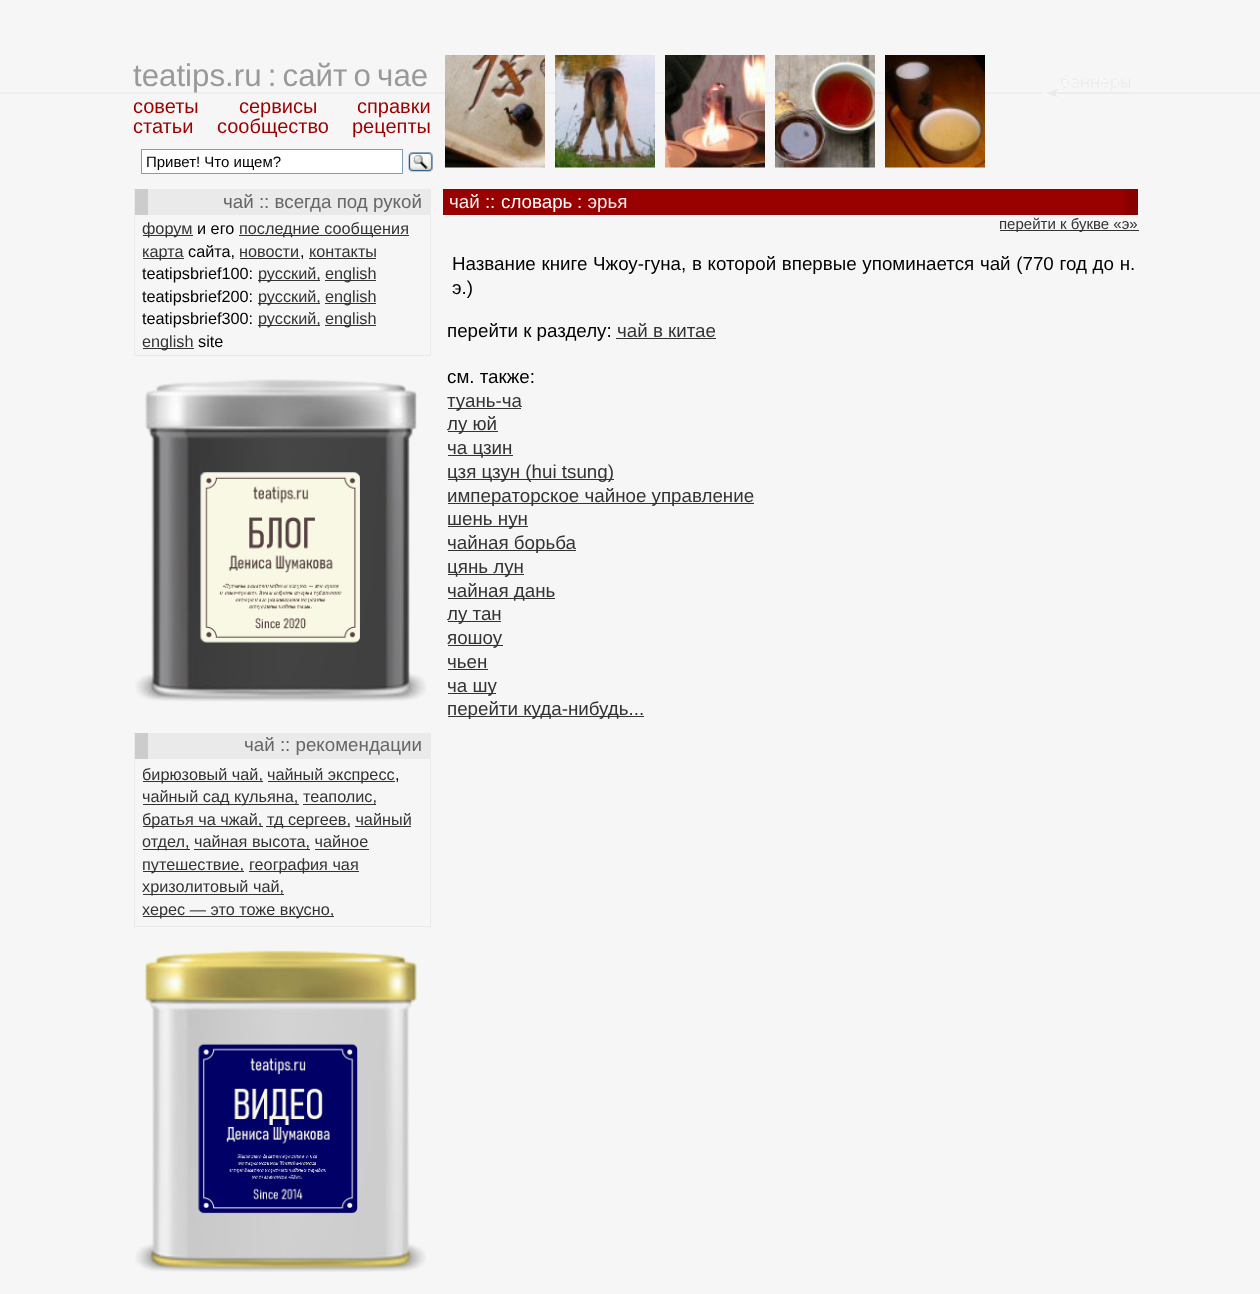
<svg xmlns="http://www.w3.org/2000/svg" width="1260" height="1294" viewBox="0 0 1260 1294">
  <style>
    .t1 { font: 31.25px Liberation Sans; fill: #999; }
    .t2 { font: 20px Liberation Sans; fill: #900; }
    .t3 { font: 15px Liberation Sans; fill: #000; }
    .t4 { font: 18.75px Liberation Sans; fill: #666; }
    .t5 { font: 16.25px Liberation Sans; fill: #333; }
    .t6 { font: 16.25px Liberation Sans; fill: #000; }
    .t7 { font: 18.75px Liberation Sans; fill: #eee; }
    .t8 { font: 18.75px Liberation Sans; fill: #fff; }
    .t9 { font: 15px Liberation Sans; fill: #333; }
    .t10 { font: 18.75px Liberation Sans; fill: #000; }
    .t11 { font: 18.75px Liberation Sans; fill: #333; }
  </style>
  <rect width="100%" height="100%" fill="#f6f6f6"/>
  <image x="0" y="92" width="1260" height="2" href="images/1.png"/>
  <text x="133" y="86" word-spacing="-2.5" class="t1">teatips.ru : сайт о чае</text>
  <text x="133" y="113" class="t2">советы</text>
  <text x="239" y="113" class="t2">сервисы</text>
  <text x="357" y="113" class="t2">справки</text>
  <text x="133" y="133" class="t2">статьи</text>
  <text x="217" y="133" class="t2">сообщество</text>
  <text x="352" y="133" class="t2">рецепты</text>
  <rect x="141.5" y="149.5" width="261" height="24" fill="#fff" stroke="#7f9db9"/>
  <text x="146" y="167" class="t3">Привет! Что ищем?</text>
  <image x="408" y="152" width="25" height="20" href="images/2.png"/>
  <image x="1042" y="75" width="88" height="22" href="images/3.png"/>
  <image x="445" y="55" width="100" height="113" href="images/4.png"/>
  <image x="555" y="55" width="100" height="113" href="images/5.png"/>
  <image x="665" y="55" width="100" height="113" href="images/6.png"/>
  <image x="775" y="55" width="100" height="113" href="images/7.png"/>
  <image x="885" y="55" width="100" height="113" href="images/8.png"/>
  <rect x="430" y="189" width="1" height="167" fill="#eaeaea"/>
  <rect x="134" y="355" width="297" height="1" fill="#eaeaea"/>
  <rect x="134" y="189" width="1" height="167" fill="#eaeaea"/>
  <rect x="148" y="189" width="282" height="26" fill="#eaeaea"/>
  <rect x="135" y="189" width="13" height="26" fill="#ccc"/>
  <text x="223" y="208" class="t4">чай :: всегда под рукой</text>
  <rect x="143" y="235" width="50" height="1" fill="#333"/>
  <text x="142" y="234" class="t5">форум</text>
  <text x="197" y="234" class="t6">и его</text>
  <rect x="239" y="235" width="170" height="1" fill="#333"/>
  <text x="239" y="234" class="t5">последние сообщения</text>
  <rect x="143" y="258" width="41" height="1" fill="#333"/>
  <text x="142" y="257" class="t5">карта</text>
  <text x="188" y="257" class="t6">сайта,</text>
  <text x="239" y="257" class="t5">новости</text>
  <rect x="240" y="258" width="60" height="1" fill="#333"/>
  <text x="300" y="257" class="t6">,</text>
  <text x="309" y="257" class="t5">контакты</text>
  <rect x="309" y="258" width="67" height="1" fill="#333"/>
  <text x="142" y="279" class="t6">teatipsbrief100:</text>
  <rect x="258" y="280" width="62" height="1" fill="#333"/>
  <text x="258" y="279" class="t5">русский,</text>
  <rect x="325" y="280" width="51" height="1" fill="#333"/>
  <text x="325" y="279" class="t5">english</text>
  <text x="142" y="302" class="t6">teatipsbrief200:</text>
  <rect x="258" y="303" width="62" height="1" fill="#333"/>
  <text x="258" y="302" class="t5">русский,</text>
  <rect x="325" y="303" width="51" height="1" fill="#333"/>
  <text x="325" y="302" class="t5">english</text>
  <text x="142" y="324" class="t6">teatipsbrief300:</text>
  <rect x="258" y="325" width="62" height="1" fill="#333"/>
  <text x="258" y="324" class="t5">русский,</text>
  <rect x="325" y="325" width="51" height="1" fill="#333"/>
  <text x="325" y="324" class="t5">english</text>
  <rect x="143" y="348" width="51" height="1" fill="#333"/>
  <text x="142" y="347" class="t5">english</text>
  <text x="198" y="347" class="t6">site</text>
  <image x="135" y="379" width="292" height="323" href="images/9.png"/>
  <rect x="430" y="733" width="1" height="195" fill="#eaeaea"/>
  <rect x="134" y="926" width="297" height="1" fill="#eaeaea"/>
  <rect x="134" y="733" width="1" height="195" fill="#eaeaea"/>
  <rect x="148" y="733" width="282" height="26" fill="#eaeaea"/>
  <rect x="135" y="733" width="13" height="26" fill="#ccc"/>
  <text x="244" y="751" class="t4">чай :: рекомендации</text>
  <rect x="143" y="781" width="120" height="1" fill="#333"/>
  <text x="142" y="780" class="t5">бирюзовый чай,</text>
  <rect x="268" y="781" width="127" height="1" fill="#333"/>
  <text x="267" y="780" class="t5">чайный экспресс</text>
  <text x="395" y="780" class="t6">,</text>
  <rect x="143" y="804" width="156" height="1" fill="#333"/>
  <text x="142" y="802" class="t5">чайный сад кульяна,</text>
  <rect x="303" y="804" width="73" height="1" fill="#333"/>
  <text x="303" y="802" class="t5">теаполис,</text>
  <rect x="143" y="826" width="120" height="1" fill="#333"/>
  <text x="142" y="825" class="t5">братья ча чжай,</text>
  <rect x="266" y="826" width="84" height="1" fill="#333"/>
  <text x="267" y="825" class="t5">тд сергеев, чайный</text>
  <rect x="143" y="849" width="47" height="1" fill="#333"/>
  <text x="142" y="847" class="t5">отдел,</text>
  <rect x="355" y="826" width="56" height="1" fill="#333"/>
  <rect x="194" y="849" width="116" height="1" fill="#333"/>
  <text x="194" y="847" class="t5">чайная высота, чайное</text>
  <rect x="143" y="871" width="101" height="1" fill="#333"/>
  <text x="142" y="870" class="t5">путешествие,</text>
  <rect x="315" y="849" width="54" height="1" fill="#333"/>
  <rect x="249" y="871" width="110" height="1" fill="#333"/>
  <text x="249" y="870" class="t5">география чая</text>
  <rect x="143" y="894" width="141" height="1" fill="#333"/>
  <text x="142" y="892" class="t5">хризолитовый чай,</text>
  <rect x="143" y="916" width="191" height="1" fill="#333"/>
  <text x="142" y="915" class="t5">херес — это тоже вкусно,</text>
  <image x="135" y="950" width="291" height="322" href="images/10.png"/>
  <rect x="443" y="189" width="682" height="26" fill="#900"/>
  <rect x="1125" y="189" width="13" height="26" fill="#800"/>
  <text x="449" y="208" class="t7">чай ::</text>
  <text x="501" y="208" class="t8">словарь</text>
  <text x="577" y="208" class="t7">: эрья</text>
  <rect x="1000" y="230" width="139" height="1" fill="#333"/>
  <text x="999" y="229" class="t9">перейти к букве «э»</text>
  <text x="452" y="270" word-spacing="0.5" class="t10">Название книге Чжоу-гуна, в которой впервые упоминается чай (770 год до н.</text>
  <text x="452" y="294" class="t10">э.)</text>
  <text x="447" y="337" class="t10">перейти к разделу:</text>
  <text x="617" y="337" class="t11">чай в китае</text>
  <rect x="616" y="338" width="100" height="1" fill="#333"/>
  <text x="447" y="383" class="t10">см. также:</text>
  <rect x="448" y="408" width="73" height="1" fill="#333"/>
  <text x="447" y="407" class="t11">туань-ча</text>
  <rect x="448" y="431" width="50" height="1" fill="#333"/>
  <text x="447" y="430" class="t11">лу юй</text>
  <rect x="448" y="455" width="65" height="1" fill="#333"/>
  <text x="447" y="454" class="t11">ча цзин</text>
  <rect x="448" y="479" width="166" height="1" fill="#333"/>
  <text x="447" y="478" class="t11">цзя цзун (hui tsung)</text>
  <rect x="448" y="503" width="306" height="1" fill="#333"/>
  <text x="447" y="502" class="t11">императорское чайное управление</text>
  <rect x="448" y="526" width="80" height="1" fill="#333"/>
  <text x="447" y="525" class="t11">шень нун</text>
  <rect x="448" y="550" width="128" height="1" fill="#333"/>
  <text x="447" y="549" class="t11">чайная борьба</text>
  <rect x="448" y="574" width="76" height="1" fill="#333"/>
  <text x="447" y="573" class="t11">цянь лун</text>
  <rect x="448" y="598" width="107" height="1" fill="#333"/>
  <text x="447" y="597" class="t11">чайная дань</text>
  <rect x="448" y="621" width="53" height="1" fill="#333"/>
  <text x="447" y="620" class="t11">лу тан</text>
  <rect x="448" y="645" width="55" height="1" fill="#333"/>
  <text x="447" y="644" class="t11">яошоу</text>
  <text x="447" y="668" class="t11">чьен</text>
  <rect x="448" y="669" width="40" height="1" fill="#333"/>
  <rect x="448" y="693" width="48" height="1" fill="#333"/>
  <text x="447" y="692" class="t11">ча шу</text>
  <rect x="448" y="716" width="196" height="1" fill="#333"/>
  <text x="447" y="715" class="t11">перейти куда-нибудь...</text>
</svg>
